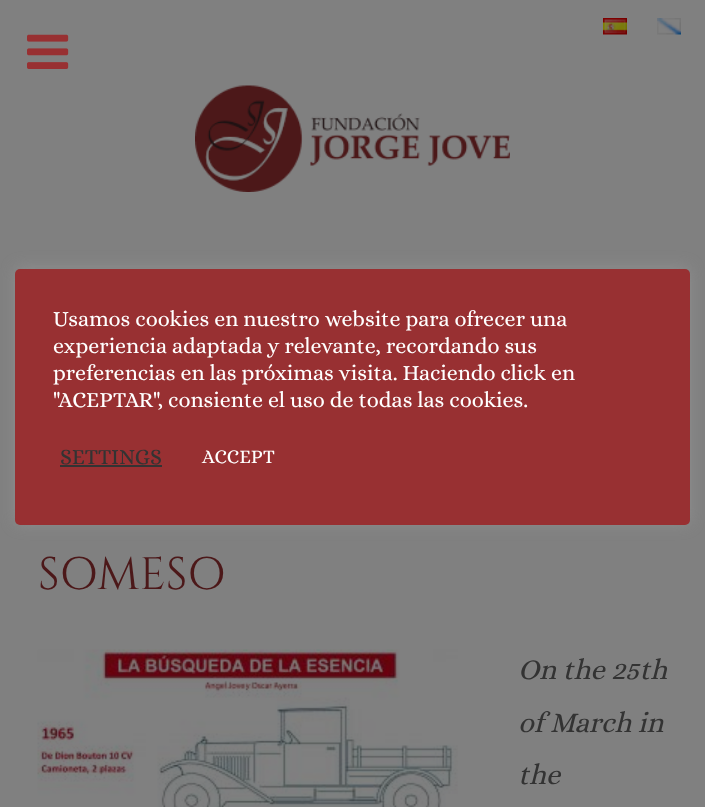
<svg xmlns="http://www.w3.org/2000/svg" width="705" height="807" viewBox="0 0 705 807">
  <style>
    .t1 { font: 22px Alice; fill: #fff; }
    .t2 { font: 22px Alice; fill: #333; }
    .t3 { font: 19.5px Alice; fill: #fff; }
    .t4 { font: 45.5px Cinzel; fill: #4c1819; }
    .t5 { font: italic 28.75px Alice; fill: #333; }
  </style>
  <rect width="100%" height="100%" fill="#808080"/>
  <rect x="15" y="267" width="675" height="257" rx="5" fill="#acabab4d" filter="blur(7.5px)"/>
  <rect x="15" y="269" width="675" height="256" rx="5" fill="#983032"/>
  <text x="53" y="326" class="t1">Usamos cookies en nuestro website para ofrecer una</text>
  <text x="53" y="353" class="t1">experiencia adaptada y relevante, recordando sus</text>
  <text x="53" y="380" class="t1">preferencias en las próximas visita. Haciendo click en</text>
  <text x="53" y="407" class="t1">"ACEPTAR", consiente el uso de todas las cookies.</text>
  <text x="60" y="464" class="t2">SETTINGS</text>
  <rect x="60" y="465" width="102" height="2" fill="#333"/>
  <text x="202" y="463" class="t3">ACCEPT</text>
  <image x="27" y="34" width="42" height="35" href="images/1.png"/>
  <image x="603" y="18" width="24" height="17" href="images/2.png"/>
  <image x="657" y="18" width="24" height="17" href="images/3.png"/>
  <image x="195" y="85" width="315" height="107" href="images/4.png"/>
  <text x="38" y="589" class="t4">SOMESO</text>
  <image x="37" y="649" width="421" height="158" href="images/5.png"/>
  <text x="518" y="679" class="t5">On the 25th</text>
  <text x="518" y="732" class="t5">of March in</text>
  <text x="518" y="784" class="t5">the</text>
</svg>
